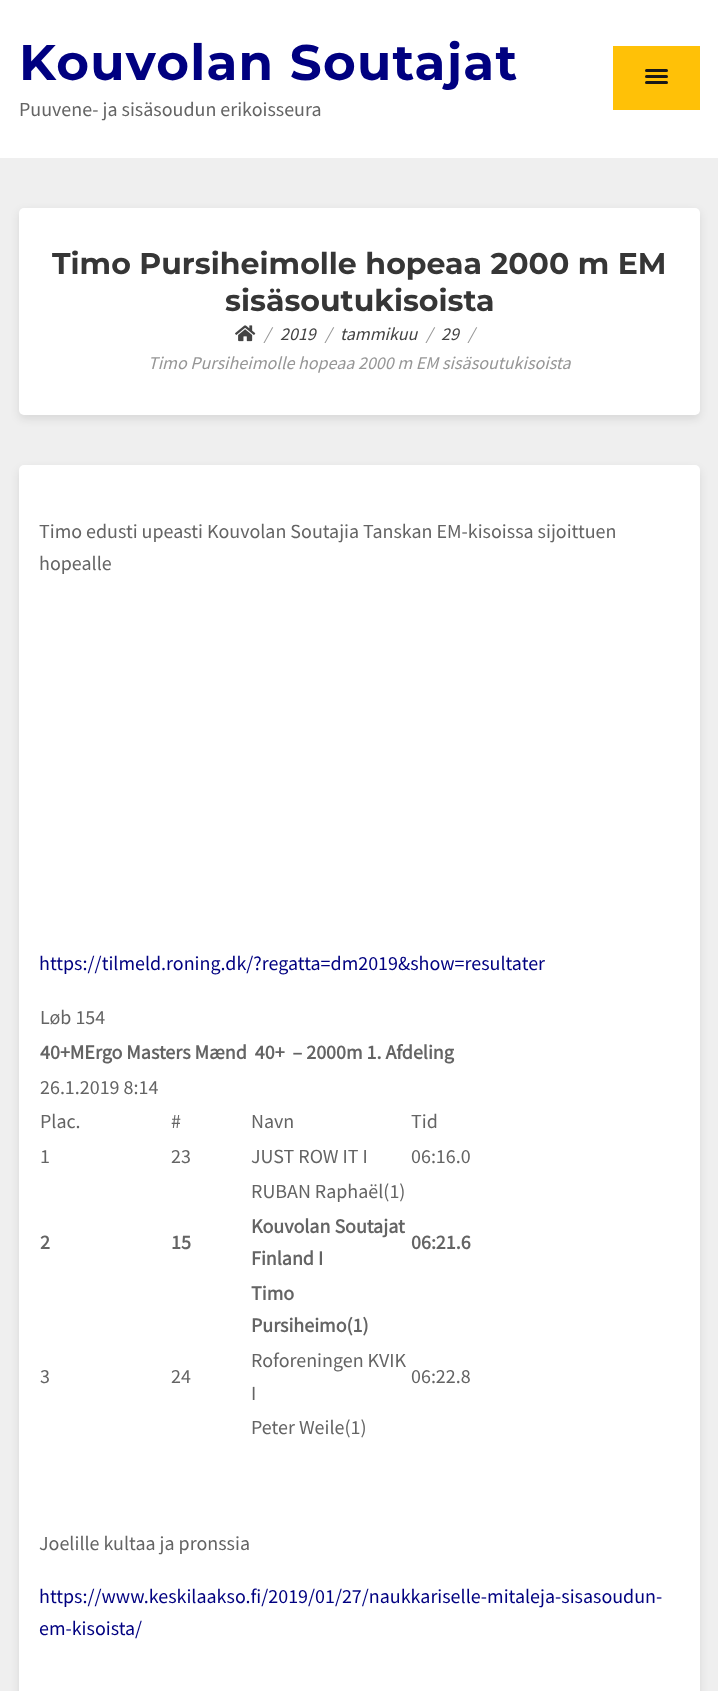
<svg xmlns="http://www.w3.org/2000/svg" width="718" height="1691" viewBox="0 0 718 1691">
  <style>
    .t1 { font: 100 50px Montserrat; letter-spacing: 1.25px; fill: #000080; }
    .t2 { font: 20px Source Sans Pro; fill: #646464; }
    .t3 { font: 100 30px Montserrat; fill: #363636; }
    .t4 { font: italic 18px Source Sans Pro; fill: #969696; }
    .t5 { font: italic 18px Source Sans Pro; fill: #444; }
    .t6 { font: 20px Source Sans Pro; fill: #000080; }
    .t7 { font: bold 20px Source Sans Pro; fill: #646464; }
  </style>
  <rect width="100%" height="100%" fill="#efefef"/>
  <rect x="0" y="0" width="718" height="158" fill="#fff"/>
  <text x="19" y="80" class="t1">Kouvolan Soutajat</text>
  <text x="19" y="116" class="t2">Puuvene- ja sisäsoudun erikoisseura</text>
  <rect x="613" y="46" width="87" height="64" fill="#ffc107"/>
  <rect x="645" y="69" width="23" height="3" rx="1.5" fill="#181818"/>
  <rect x="645" y="75" width="23" height="3" rx="1.5" fill="#181818"/>
  <rect x="645" y="81" width="23" height="3" rx="1.5" fill="#181818"/>
  <rect x="19" y="211" width="681" height="208" rx="5" fill="#1414141a" filter="blur(4px)"/>
  <rect x="19" y="208" width="681" height="207" rx="5" fill="#fff"/>
  <text x="52" y="274" class="t3">Timo Pursiheimolle hopeaa 2000 m EM</text>
  <text x="225" y="311" class="t3">sisäsoutukisoista</text>
  <image x="235" y="325" width="21" height="17" href="images/1.png"/>
  <text x="264" y="340" class="t4">/</text>
  <text x="280" y="340" class="t5">2019</text>
  <text x="325" y="340" class="t4">/</text>
  <text x="340" y="340" class="t5">tammikuu</text>
  <text x="426" y="340" class="t4">/</text>
  <text x="441" y="340" class="t5">29</text>
  <text x="468" y="340" class="t4">/</text>
  <text x="148" y="369" class="t4">Timo Pursiheimolle hopeaa 2000 m EM sisäsoutukisoista</text>
  <rect x="19" y="469" width="681" height="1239" rx="5" fill="#1414141a" filter="blur(4px)"/>
  <rect x="19" y="465" width="681" height="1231" rx="5" fill="#fff"/>
  <text x="39" y="538" class="t2">Timo edusti upeasti Kouvolan Soutajia Tanskan EM-kisoissa sijoittuen</text>
  <text x="39" y="570" class="t2">hopealle</text>
  <text x="39" y="970" class="t6">https://tilmeld.roning.dk/?regatta=dm2019&amp;show=resultater</text>
  <text x="40" y="1024" class="t2">Løb 154</text>
  <text x="40" y="1059" class="t7" xml:space="preserve">40+MErgo Masters Mænd  40+  – 2000m 1. Afdeling</text>
  <text x="40" y="1094" class="t2">26.1.2019 8:14</text>
  <text x="40" y="1128" class="t2">Plac.</text>
  <text x="171" y="1128" class="t2">#</text>
  <text x="251" y="1128" class="t2">Navn</text>
  <text x="411" y="1128" class="t2">Tid</text>
  <text x="40" y="1163" class="t2">1</text>
  <text x="171" y="1163" class="t2">23</text>
  <text x="251" y="1163" class="t2">JUST ROW IT I</text>
  <text x="411" y="1163" class="t2">06:16.0</text>
  <text x="251" y="1198" class="t2">RUBAN Raphaël(1)</text>
  <text x="40" y="1249" class="t7">2</text>
  <text x="171" y="1249" class="t7">15</text>
  <text x="251" y="1233" class="t7">Kouvolan Soutajat</text>
  <text x="251" y="1265" class="t7">Finland I</text>
  <text x="411" y="1249" class="t7">06:21.6</text>
  <text x="251" y="1300" class="t7">Timo</text>
  <text x="251" y="1332" class="t7">Pursiheimo(1)</text>
  <text x="40" y="1383" class="t2">3</text>
  <text x="171" y="1383" class="t2">24</text>
  <text x="251" y="1367" class="t2">Roforeningen KVIK</text>
  <text x="251" y="1400" class="t2">I</text>
  <text x="411" y="1383" class="t2">06:22.8</text>
  <text x="251" y="1434" class="t2">Peter Weile(1)</text>
  <text x="39" y="1550" class="t2">Joelille kultaa ja pronssia</text>
  <text x="39" y="1603" class="t6">https://www.keskilaakso.fi/2019/01/27/naukkariselle-mitaleja-sisasoudun-</text>
  <text x="39" y="1635" class="t6">em-kisoista/</text>
</svg>
